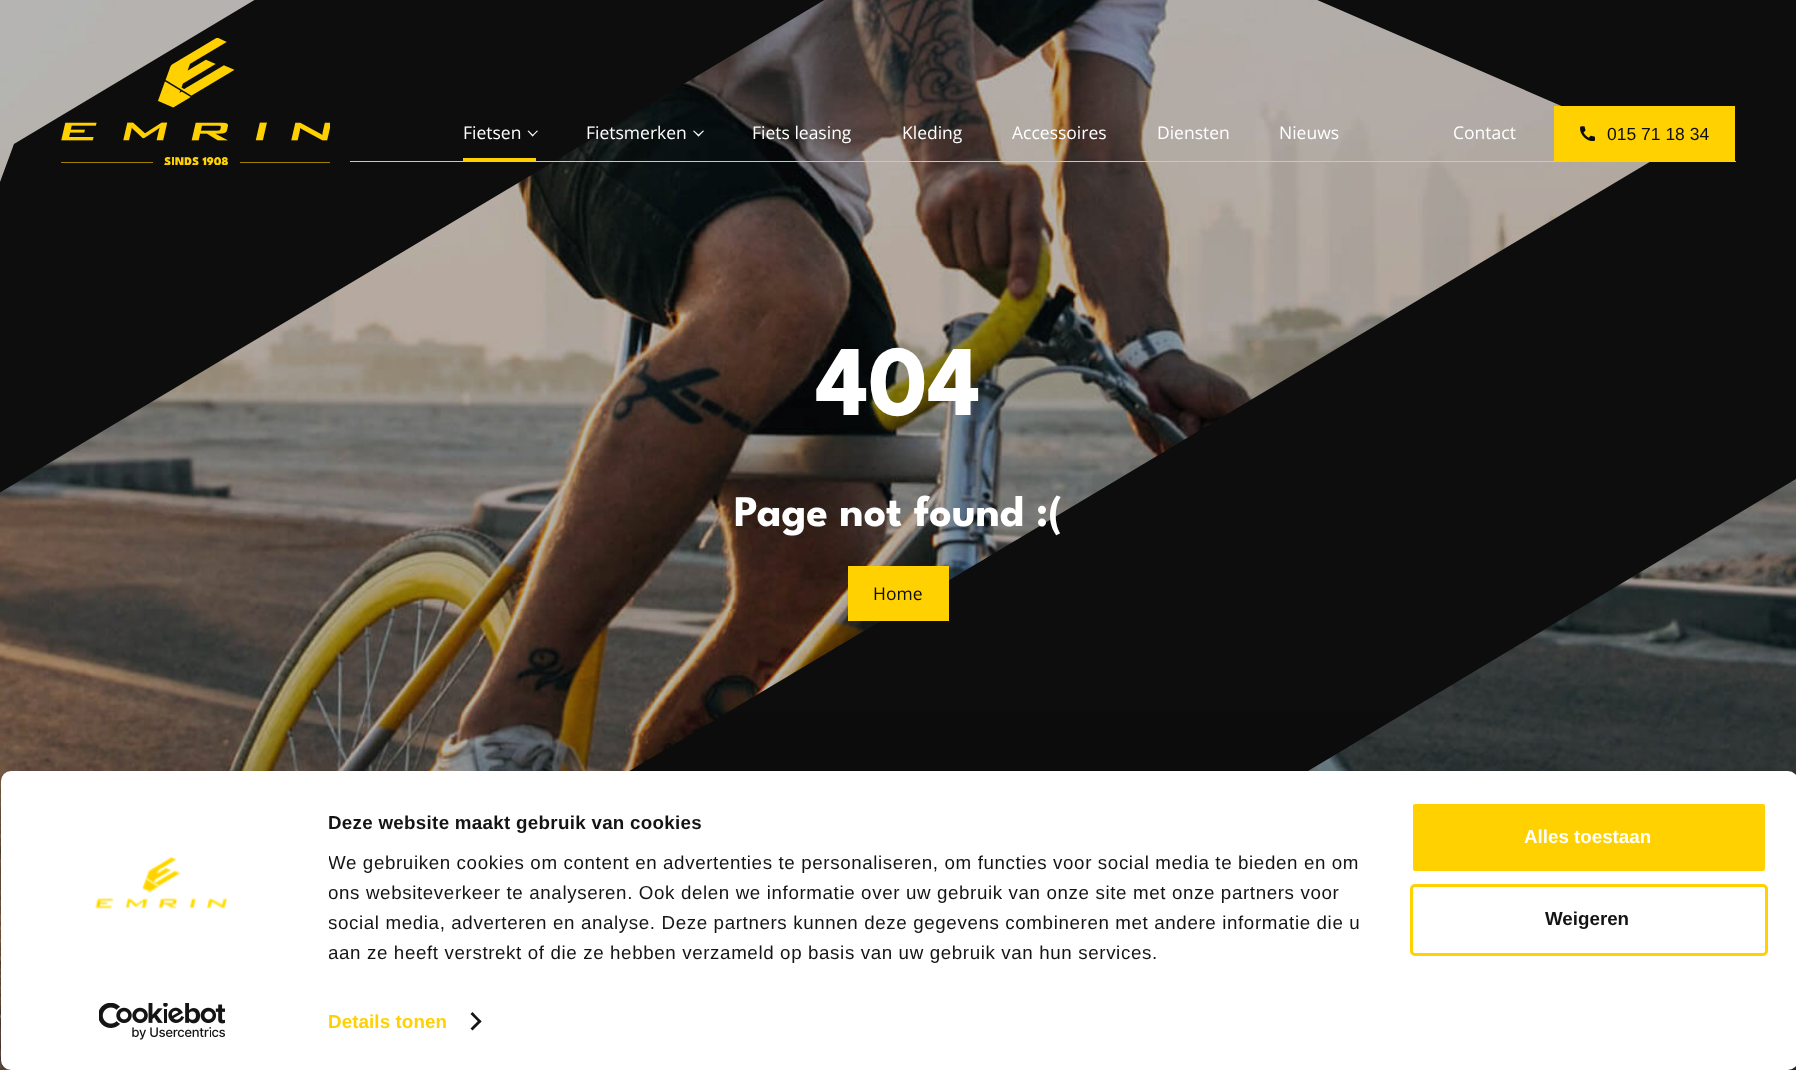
<svg xmlns="http://www.w3.org/2000/svg" width="1796" height="1070" viewBox="0 0 1796 1070">
  <style>
    .t1 { font: 17.5px Open Sans; fill: #fff; }
    .t2 { font: 17.5px Liberation Sans; fill: #0d0d0d; }
    .t3 { font: bold 100px League Spartan; fill: #fff; }
    .t4 { font: bold 43.75px League Spartan; fill: #fff; }
    .t5 { font: 17.5px Open Sans; fill: #0d0d0d; }
    .t6 { font: bold 18.75px Liberation Sans; letter-spacing: 0.3px; fill: #141414; }
    .t7 { font: 18.75px Liberation Sans; letter-spacing: 0.62px; fill: #141414; }
    .t8 { font: bold 18.75px Liberation Sans; letter-spacing: 0.1px; fill: #ffd100; }
    .t9 { font: bold 18.75px Liberation Sans; fill: #fff; }
    .t10 { font: bold 18.75px Liberation Sans; fill: #141414; }
  </style>
  <defs>
    <clipPath id="clip1"><rect x="329" y="809" width="1074" height="159"/></clipPath>
  </defs>
  <rect width="100%" height="100%" fill="#0d0d0d"/>
  <image x="0" y="0" width="1796" height="1070" href="images/3.png"/>
  <image x="61" y="38" width="269" height="127" href="images/1.png"/>
  <rect x="350" y="161" width="1386" height="1" fill="#ffd100"/>
  <text x="463" y="139" class="t1">Fietsen</text>
  <path d="M537 130.5L538 131L532.5 136.5L532 135.5Z" fill="#fff"/>
  <path d="M528.5 130.5L533.5 135.5L532.5 136.5L527.5 131Z" fill="#fff"/>
  <rect x="463" y="158" width="73" height="3" fill="#ffd100"/>
  <text x="586" y="139" class="t1">Fietsmerken</text>
  <path d="M703 130.5L704 131L698.5 136.5L697.5 135.5Z" fill="#fff"/>
  <path d="M694 130.5L699.5 135.5L698.5 136.5L693 131Z" fill="#fff"/>
  <text x="752" y="139" class="t1">Fiets leasing</text>
  <text x="902" y="139" class="t1">Kleding</text>
  <text x="1012" y="139" class="t1">Accessoires</text>
  <text x="1157" y="139" class="t1">Diensten</text>
  <text x="1279" y="139" class="t1">Nieuws</text>
  <text x="1453" y="139" class="t1">Contact</text>
  <rect x="1554" y="106" width="181" height="55" fill="#ffd100"/>
  <image x="1580" y="126" width="15" height="15" href="images/2.png"/>
  <text x="1607" y="140" class="t2">015 71 18 34</text>
  <text x="816" y="415" class="t3">404</text>
  <text x="734" y="526" class="t4">Page not found :(</text>
  <rect x="848" y="566" width="101" height="55" fill="#ffd100"/>
  <text x="873" y="600" class="t5">Home</text>
  <rect x="1" y="809" width="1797" height="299" rx="10" fill="#0000004d" filter="blur(44px)"/>
  <rect x="1" y="771" width="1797" height="299" rx="10" fill="#fff"/>
  <image x="95" y="857" width="132" height="52" href="images/4.png"/>
  <image x="99" y="1003" width="126" height="37" href="images/5.png"/>
  <g clip-path="url(#clip1)">
    <text x="328" y="829" class="t6">Deze website maakt gebruik van cookies</text>
    <text x="328" y="869" class="t7">We gebruiken cookies om content en advertenties te personaliseren, om functies voor social media te bieden en om</text>
    <text x="328" y="899" class="t7">ons websiteverkeer te analyseren. Ook delen we informatie over uw gebruik van onze site met onze partners voor</text>
    <text x="328" y="929" class="t7">social media, adverteren en analyse. Deze partners kunnen deze gegevens combineren met andere informatie die u</text>
    <text x="328" y="959" class="t7">aan ze heeft verstrekt of die ze hebben verzameld op basis van uw gebruik van hun services.</text>
  </g>
  <text x="328" y="1028" class="t8">Details tonen</text>
  <path d="M472.5 1012L481.5 1021.5L479.5 1023L470.5 1014Z" fill="#141414"/>
  <path d="M479.5 1019.5L481.5 1021.5L472.5 1030.5L470.5 1028.5Z" fill="#141414"/>
  <rect x="1411.5" y="802.5" width="355" height="70" rx="3.5" fill="#ffd100" stroke="#fff" stroke-width="3"/>
  <text x="1524" y="843" class="t9">Alles toestaan</text>
  <rect x="1411.5" y="885.5" width="355" height="69" rx="3.5" fill="none" stroke="#ffd100" stroke-width="3"/>
  <text x="1545" y="925" class="t10">Weigeren</text>
</svg>
